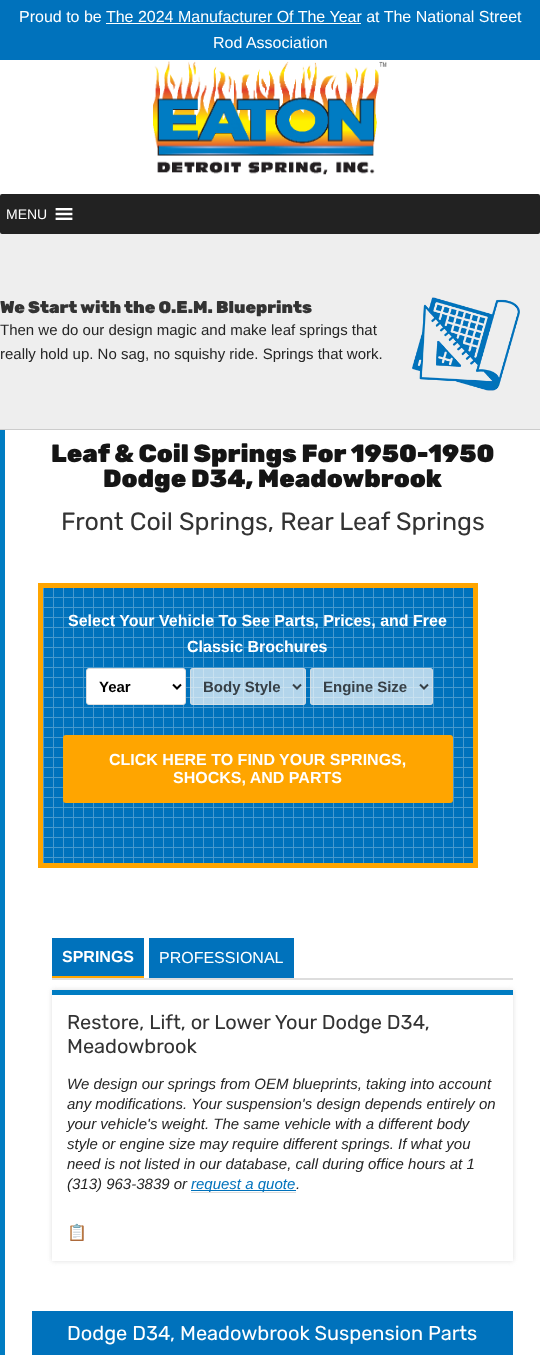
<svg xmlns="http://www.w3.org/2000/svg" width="540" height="1355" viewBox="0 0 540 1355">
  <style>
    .t1 { font: 16px Liberation Sans; fill: #fff; }
    .t2 { font: 14px Liberation Sans; fill: #fff; }
    .t3 { font: 900 17px Rubik; fill: #333; }
    .t4 { font: 15px Liberation Sans; fill: #252525; }
    .t5 { font: 900 25px Rubik; fill: #151515; }
    .t6 { font: 25px Rubik; fill: #333; }
    .t7 { font: bold 16px Liberation Sans; fill: #fff; }
    .t8 { font: bold 15px Liberation Sans; fill: #000; }
    .t9 { font: bold 15px Liberation Sans; fill: #374047; }
    .t10 { font: 20px Rubik; fill: #333; }
    .t11 { font: italic 15px Liberation Sans; fill: #252525; }
    .t12 { font: italic 15px Liberation Sans; fill: #0072bc; }
    .t13 { font: 16px Noto Color Emoji; fill: #7c7c7c; }
    .t14 { font: 20px Rubik; fill: #fff; }
  </style>
  <defs>
    <clipPath id="clip1"><path d="M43 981H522V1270H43ZM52 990H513V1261H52Z" clip-rule="evenodd"/></clipPath>
  </defs>
  <rect width="100%" height="100%" fill="#fff"/>
  <rect x="0" y="0" width="540" height="60" fill="#0072bc"/>
  <text x="19" y="22" class="t1">Proud to be The 2024 Manufacturer Of The Year at The National Street</text>
  <rect x="106" y="23" width="255" height="1" fill="#fff"/>
  <text x="213" y="48" class="t1">Rod Association</text>
  <image x="153" y="61" width="234" height="114" href="images/1.png"/>
  <rect x="0" y="194" width="540" height="40" rx="2" fill="#222"/>
  <text x="6" y="219" class="t2">MENU</text>
  <image x="55" y="208" width="18" height="12" href="images/2.png"/>
  <rect x="0" y="234" width="540" height="195" fill="#eee"/>
  <rect x="0" y="429" width="540" height="1" fill="#ccc"/>
  <text x="0" y="313" class="t3">We Start with the O.E.M. Blueprints</text>
  <text x="0" y="335" class="t4">Then we do our design magic and make leaf springs that</text>
  <text x="0" y="359" class="t4">really hold up. No sag, no squishy ride. Springs that work.</text>
  <image x="412" y="297" width="108" height="94" href="images/3.png"/>
  <path d="M0 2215V430H5V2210Z" fill="#007cc2"/>
  <text x="51" y="462" class="t5">Leaf &amp; Coil Springs For 1950-1950</text>
  <text x="103" y="487" class="t5">Dodge D34, Meadowbrook</text>
  <text x="61" y="530" class="t6">Front Coil Springs, Rear Leaf Springs</text>
  <rect x="43" y="588" width="430" height="275" fill="#0072bc"/>
  <image x="43" y="588" width="430" height="275" href="images/4.png"/>
  <rect x="40.5" y="585.5" width="435" height="280" fill="none" stroke="#ffa500" stroke-width="5"/>
  <text x="68" y="626" class="t7">Select Your Vehicle To See Parts, Prices, and Free</text>
  <text x="187" y="652" class="t7">Classic Brochures</text>
  <rect x="86.5" y="668.5" width="99" height="36" rx="2.5" fill="#fff" stroke="#ddd"/>
  <path d="M173 684.5L177 688.5L181 684.5" fill="none" stroke="#000" stroke-width="2"/>
  <text x="99" y="692" class="t8">Year</text>
  <rect x="190" y="668" width="116" height="37" rx="3" fill="#ffffffb3"/>
  <rect x="190.5" y="668.5" width="115" height="36" rx="2.5" fill="none" stroke="#ddddddb3"/>
  <path d="M293 684.5L297 688.5L301 684.5" fill="none" stroke="#000000b3" stroke-width="2"/>
  <text x="203" y="692" class="t9">Body Style</text>
  <rect x="310" y="668" width="123" height="37" rx="3" fill="#ffffffb3"/>
  <rect x="310.5" y="668.5" width="122" height="36" rx="2.5" fill="none" stroke="#ddddddb3"/>
  <path d="M420 684.5L424 688.5L428 684.5" fill="none" stroke="#000000b3" stroke-width="2"/>
  <text x="323" y="692" class="t9">Engine Size</text>
  <rect x="63" y="735" width="390" height="68" rx="3" fill="#ffa500"/>
  <text x="109" y="765" class="t7">CLICK HERE TO FIND YOUR SPRINGS,</text>
  <text x="173" y="783" class="t7">SHOCKS, AND PARTS</text>
  <rect x="52" y="978" width="461" height="2" fill="#ddd"/>
  <rect x="52" y="938" width="92" height="38" fill="#0072bc"/>
  <rect x="52" y="976" width="92" height="2" fill="#ffa500"/>
  <text x="62" y="962" class="t7">SPRINGS</text>
  <rect x="149" y="938" width="145" height="40" fill="#0072bc"/>
  <text x="159" y="963" class="t1">PROFESSIONAL</text>
  <g clip-path="url(#clip1)">
    <rect x="52" y="990" width="461" height="271" fill="#ddd" filter="blur(2.5px)"/>
  </g>
  <rect x="52" y="990" width="461" height="5" fill="#007cc2"/>
  <text x="67" y="1029" class="t10">Restore, Lift, or Lower Your Dodge D34,</text>
  <text x="67" y="1053" class="t10">Meadowbrook</text>
  <text x="67" y="1089" class="t11">We design our springs from OEM blueprints, taking into account</text>
  <text x="67" y="1109" class="t11">any modifications. Your suspension's design depends entirely on</text>
  <text x="67" y="1129" class="t11">your vehicle's weight. The same vehicle with a different body</text>
  <text x="67" y="1149" class="t11">style or engine size may require different springs. If what you</text>
  <text x="67" y="1169" class="t11">need is not listed in our database, call during office hours at 1</text>
  <text x="67" y="1189" class="t11">(313) 963-3839 or</text>
  <rect x="191" y="1192" width="105" height="1" fill="#ddd"/>
  <rect x="191" y="1190" width="105" height="1" fill="#0072bc"/>
  <text x="191" y="1189" class="t12">request a quote</text>
  <text x="296" y="1189" class="t11">.</text>
  <text x="67" y="1238" class="t13">📋</text>
  <rect x="32" y="1311" width="481" height="44" fill="#0072bc"/>
  <text x="67" y="1340" class="t14">Dodge D34, Meadowbrook Suspension Parts</text>
</svg>
